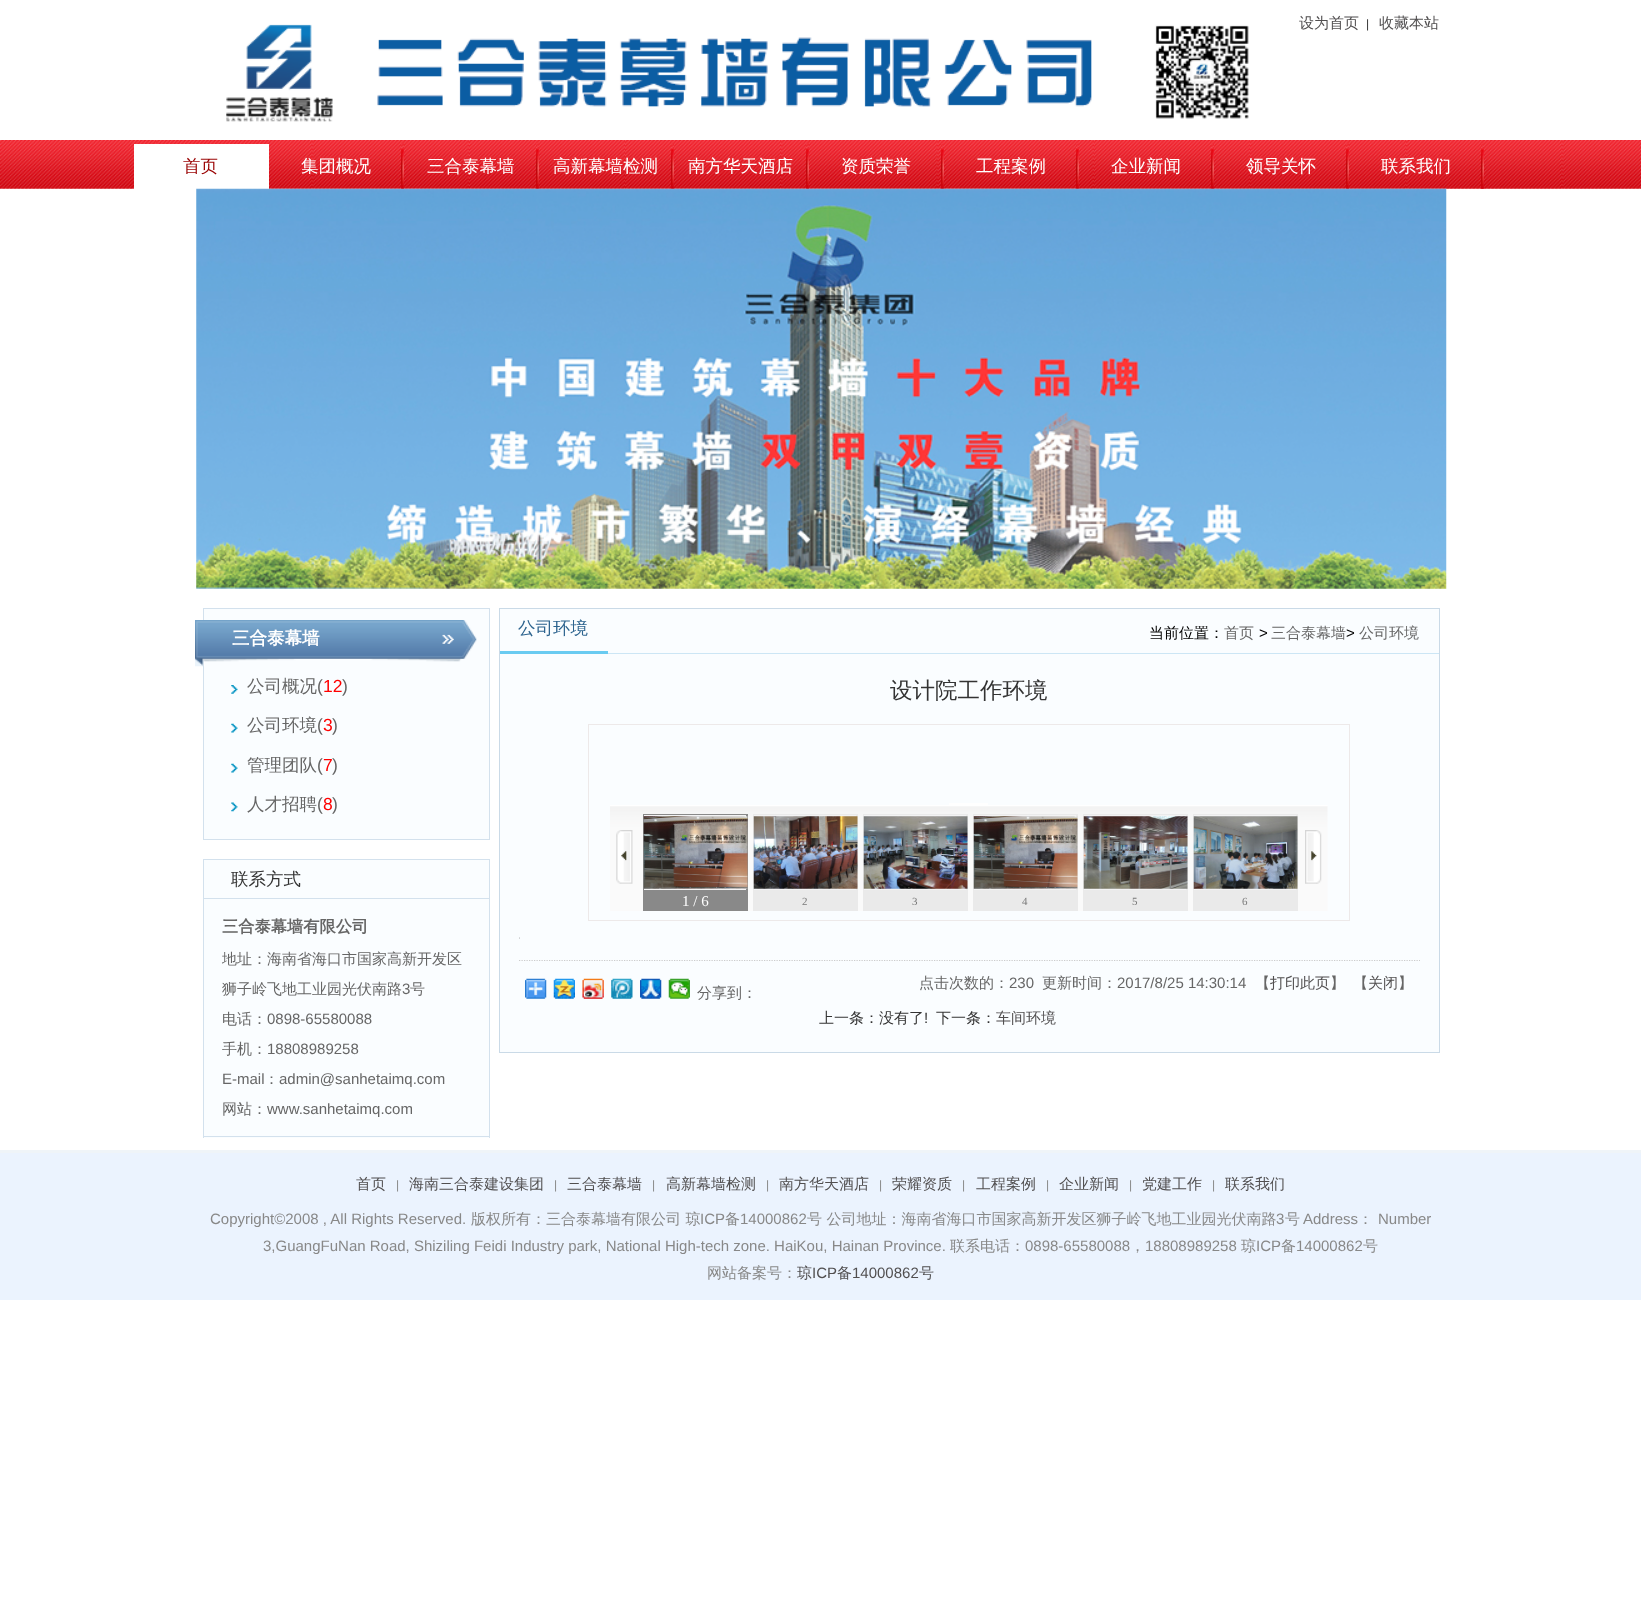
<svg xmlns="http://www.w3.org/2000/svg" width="1641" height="1608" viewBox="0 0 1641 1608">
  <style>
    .t1 { font: 500 15px WenQuanYi Zen Hei; fill: #514f50; }
    .t2 { font: 12px Liberation Sans; fill: #333; }
    .t3 { font: 500 17.5px WenQuanYi Zen Hei; fill: #900; }
    .t4 { font: 500 17.5px WenQuanYi Zen Hei; fill: #fff; }
    .t5 { font: bold 17.5px WenQuanYi Zen Hei; fill: #fff; }
    .t6 { font: 500 17.5px WenQuanYi Zen Hei; fill: #666; }
    .t7 { font: 17.5px Liberation Sans; fill: #666; }
    .t8 { font: 17.5px Liberation Sans; fill: #f00; }
    .t9 { font: 500 17.5px WenQuanYi Zen Hei; fill: #333; }
    .t10 { font: bold 16.25px WenQuanYi Zen Hei; fill: #666; }
    .t11 { font: 500 15px WenQuanYi Zen Hei; fill: #666; }
    .t12 { font: 15px Liberation Sans; fill: #666; }
    .t13 { font: 500 17.5px WenQuanYi Zen Hei; fill: #2d648f; }
    .t14 { font: 500 15px WenQuanYi Zen Hei; fill: #000; }
    .t15 { font: 15px Liberation Sans; fill: #000; }
    .t16 { font: 500 22.5px WenQuanYi Zen Hei; fill: #333; }
    .t17 { font: 15px Liberation Serif; fill: #fff; }
    .t18 { font: 11px Liberation Serif; fill: #797979; }
    .t19 { font: 500 15px WenQuanYi Zen Hei; fill: #333; }
    .t20 { font: 15px Liberation Sans; fill: #333; }
    .t21 { font: 12px Liberation Sans; fill: #888; }
    .t22 { font: 15px Liberation Sans; fill: #888; }
    .t23 { font: 500 15px WenQuanYi Zen Hei; fill: #888; }
    .t24 { font: 15px Liberation Sans; fill: #514f50; }
  </style>
  <rect width="100%" height="100%" fill="#fff"/>
  <image x="226" y="24" width="1023" height="98" href="images/1.png"/>
  <text x="1299" y="28" class="t1">设为首页</text>
  <text x="1366" y="28" class="t2">|</text>
  <text x="1379" y="28" class="t1">收藏本站</text>
  <image x="0" y="140" width="1641" height="49" href="images/2.png"/>
  <rect x="134" y="144" width="135" height="45" fill="#fff"/>
  <text x="183" y="172" class="t3">首页</text>
  <image x="401" y="143" width="3" height="46" href="images/3.png"/>
  <text x="301" y="172" class="t4">集团概况</text>
  <image x="536" y="143" width="3" height="46" href="images/4.png"/>
  <text x="427" y="172" class="t4">三合泰幕墙</text>
  <image x="671" y="144" width="3" height="45" href="images/5.png"/>
  <text x="553" y="172" class="t4">高新幕墙检测</text>
  <image x="806" y="143" width="3" height="46" href="images/6.png"/>
  <text x="688" y="172" class="t4">南方华天酒店</text>
  <image x="941" y="143" width="3" height="46" href="images/7.png"/>
  <text x="841" y="172" class="t4">资质荣誉</text>
  <image x="1076" y="143" width="3" height="46" href="images/8.png"/>
  <text x="976" y="172" class="t4">工程案例</text>
  <image x="1211" y="144" width="3" height="45" href="images/9.png"/>
  <text x="1111" y="172" class="t4">企业新闻</text>
  <image x="1346" y="143" width="3" height="46" href="images/10.png"/>
  <text x="1246" y="172" class="t4">领导关怀</text>
  <image x="1481" y="143" width="3" height="46" href="images/11.png"/>
  <text x="1381" y="172" class="t4">联系我们</text>
  <image x="196" y="188" width="1251" height="401" href="images/12.png"/>
  <rect x="203" y="608" width="287" height="1" fill="#d3e1ed"/>
  <rect x="489" y="608" width="1" height="61" fill="#d3e1ed"/>
  <rect x="203" y="608" width="1" height="61" fill="#d3e1ed"/>
  <rect x="204" y="609" width="285" height="230" fill="#fafdff"/>
  <image x="195" y="620" width="282" height="47" href="images/13.png"/>
  <text x="232" y="644" class="t5">三合泰幕墙</text>
  <rect x="489" y="669" width="1" height="171" fill="#d3e1ed"/>
  <rect x="203" y="839" width="287" height="1" fill="#d3e1ed"/>
  <rect x="203" y="669" width="1" height="171" fill="#d3e1ed"/>
  <image x="231" y="685" width="7" height="9" href="images/14.png"/>
  <text x="247" y="692" class="t6">公司概况</text>
  <text x="317" y="692" class="t7">(</text>
  <text x="323" y="692" class="t8">12</text>
  <text x="342" y="692" class="t7">)</text>
  <image x="231" y="723" width="7" height="10" href="images/15.png"/>
  <text x="247" y="731" class="t6">公司环境</text>
  <text x="317" y="731" class="t7">(</text>
  <text x="323" y="731" class="t8">3</text>
  <text x="332" y="731" class="t7">)</text>
  <image x="231" y="763" width="7" height="10" href="images/15.png"/>
  <text x="247" y="771" class="t6">管理团队</text>
  <text x="317" y="771" class="t7">(</text>
  <text x="323" y="771" class="t8">7</text>
  <text x="332" y="771" class="t7">)</text>
  <image x="231" y="802" width="7" height="10" href="images/16.png"/>
  <text x="247" y="810" class="t6">人才招聘</text>
  <text x="317" y="810" class="t7">(</text>
  <text x="323" y="810" class="t8">8</text>
  <text x="332" y="810" class="t7">)</text>
  <rect x="203.5" y="859.5" width="286" height="39" fill="#fafdff" stroke="#d3e1ed"/>
  <text x="231" y="885" class="t9">联系方式</text>
  <rect x="204" y="899" width="285" height="239" fill="#fafdff"/>
  <rect x="489" y="899" width="1" height="239" fill="#d3e1ed"/>
  <rect x="203" y="1136" width="287" height="1" fill="#d3e1ed"/>
  <rect x="203" y="899" width="1" height="239" fill="#d3e1ed"/>
  <text x="222" y="932" class="t10">三合泰幕墙有限公司</text>
  <text x="222" y="964" class="t11">地址：海南省海口市国家高新开发区</text>
  <text x="222" y="994" class="t11">狮子岭飞地工业园光伏南路</text>
  <text x="402" y="994" class="t12">3</text>
  <text x="410" y="994" class="t11">号</text>
  <text x="222" y="1024" class="t11">电话：</text>
  <text x="267" y="1024" class="t12">0898-65580088</text>
  <text x="222" y="1054" class="t11">手机：</text>
  <text x="267" y="1054" class="t12">18808989258</text>
  <text x="222" y="1084" class="t12">E-mail</text>
  <text x="264" y="1084" class="t11">：</text>
  <text x="279" y="1084" class="t12">admin@sanhetaimq.com</text>
  <text x="222" y="1114" class="t11">网站：</text>
  <text x="267" y="1114" class="t12">www.sanhetaimq.com</text>
  <rect x="499.5" y="608.5" width="940" height="444" fill="#fafdff" stroke="#cadae7"/>
  <rect x="608" y="653" width="831" height="1" fill="#cce6f5"/>
  <rect x="500" y="651" width="108" height="3" fill="#69cbf1"/>
  <text x="518" y="634" class="t13">公司环境</text>
  <text x="1149" y="638" class="t14">当前位置：</text>
  <text x="1224" y="638" class="t11">首页</text>
  <text x="1259" y="638" class="t15">&gt;</text>
  <text x="1271" y="638" class="t11">三合泰幕墙</text>
  <text x="1346" y="638" class="t15">&gt;</text>
  <text x="1359" y="638" class="t11">公司环境</text>
  <text x="890" y="698" class="t16">设计院工作环境</text>
  <image x="949" y="803" width="39" height="2" href="images/17.png"/>
  <rect x="588.5" y="724.5" width="761" height="196" fill="none" stroke="#ede9e9"/>
  <image x="610" y="805" width="718" height="106" href="images/18.png"/>
  <image x="616" y="830" width="17" height="54" href="images/19.png"/>
  <image x="1305" y="830" width="17" height="54" href="images/20.png"/>
  <rect x="643" y="814" width="105" height="97" fill="#898989"/>
  <rect x="644" y="815" width="102" height="75" fill="#f3f3f4"/>
  <image x="643" y="816" width="105" height="73" href="images/21.png"/>
  <text x="682" y="906" class="t17">1 / 6</text>
  <rect x="753" y="814" width="105" height="97" fill="#eaeaea"/>
  <rect x="754" y="815" width="102" height="75" fill="#f3f3f4"/>
  <image x="753" y="816" width="105" height="73" href="images/22.png"/>
  <text x="802" y="905" class="t18">2</text>
  <rect x="863" y="814" width="105" height="97" fill="#eaeaea"/>
  <rect x="864" y="815" width="102" height="75" fill="#f3f3f4"/>
  <image x="863" y="816" width="105" height="73" href="images/23.png"/>
  <text x="912" y="905" class="t18">3</text>
  <rect x="973" y="814" width="105" height="97" fill="#eaeaea"/>
  <rect x="974" y="815" width="102" height="75" fill="#f3f3f4"/>
  <image x="973" y="816" width="105" height="73" href="images/24.png"/>
  <text x="1022" y="905" class="t18">4</text>
  <rect x="1083" y="814" width="105" height="97" fill="#eaeaea"/>
  <rect x="1084" y="815" width="102" height="75" fill="#f3f3f4"/>
  <image x="1083" y="816" width="105" height="73" href="images/25.png"/>
  <text x="1132" y="905" class="t18">5</text>
  <rect x="1193" y="814" width="105" height="97" fill="#eaeaea"/>
  <rect x="1194" y="815" width="102" height="75" fill="#f3f3f4"/>
  <image x="1193" y="816" width="105" height="73" href="images/26.png"/>
  <text x="1242" y="905" class="t18">6</text>
  <image x="519" y="937" width="1" height="2" href="images/27.png"/>
  <path d="M519 960.5H1420" fill="none" stroke="#ccc" stroke-width="1.2" stroke-dasharray="1.25 1.25"/>
  <text x="919" y="988" class="t11">点击次数的：</text>
  <text x="1009" y="988" class="t12">230</text>
  <text x="1042" y="988" class="t11">更新时间：</text>
  <text x="1117" y="988" class="t12">2017/8/25 14:30:14</text>
  <text x="1255" y="988" class="t11">【</text>
  <text x="1270" y="988" class="t1">打印此页</text>
  <text x="1330" y="988" class="t11">】</text>
  <text x="1353" y="988" class="t11">【</text>
  <text x="1368" y="988" class="t1">关闭</text>
  <text x="1398" y="988" class="t11">】</text>
  <image x="525" y="978" width="22" height="21" href="images/28.png"/>
  <image x="553" y="978" width="22" height="21" href="images/29.png"/>
  <image x="582" y="978" width="22" height="21" href="images/30.png"/>
  <image x="611" y="978" width="22" height="21" href="images/31.png"/>
  <image x="640" y="978" width="22" height="21" href="images/32.png"/>
  <image x="668" y="978" width="22" height="21" href="images/33.png"/>
  <text x="697" y="998" class="t11">分享到：</text>
  <text x="819" y="1023" class="t19">上一条：没有了</text>
  <text x="924" y="1023" class="t20">!</text>
  <text x="936" y="1023" class="t19">下一条：</text>
  <text x="996" y="1023" class="t1">车间环境</text>
  <rect x="0" y="1153" width="1641" height="147" fill="#ebf3fe"/>
  <rect x="0" y="1150" width="1641" height="3" fill="#eff4f8"/>
  <text x="356" y="1189" class="t1">首页</text>
  <text x="396" y="1189" class="t21">|</text>
  <text x="409" y="1189" class="t1">海南三合泰建设集团</text>
  <text x="554" y="1189" class="t21">|</text>
  <text x="567" y="1189" class="t1">三合泰幕墙</text>
  <text x="652" y="1189" class="t21">|</text>
  <text x="666" y="1189" class="t1">高新幕墙检测</text>
  <text x="766" y="1189" class="t21">|</text>
  <text x="779" y="1189" class="t1">南方华天酒店</text>
  <text x="879" y="1189" class="t21">|</text>
  <text x="892" y="1189" class="t1">荣耀资质</text>
  <text x="962" y="1189" class="t21">|</text>
  <text x="976" y="1189" class="t1">工程案例</text>
  <text x="1046" y="1189" class="t21">|</text>
  <text x="1059" y="1189" class="t1">企业新闻</text>
  <text x="1129" y="1189" class="t21">|</text>
  <text x="1142" y="1189" class="t1">党建工作</text>
  <text x="1212" y="1189" class="t21">|</text>
  <text x="1225" y="1189" class="t1">联系我们</text>
  <text x="210" y="1224" class="t22">Copyright©2008 , All Rights Reserved.</text>
  <text x="471" y="1224" class="t23">版权所有：三合泰幕墙有限公司 琼</text>
  <text x="700" y="1224" class="t22">ICP</text>
  <text x="725" y="1224" class="t23">备</text>
  <text x="740" y="1224" class="t22">14000862</text>
  <text x="807" y="1224" class="t23">号 公司地址：海南省海口市国家高新开发区狮子岭飞地工业园光伏南路</text>
  <text x="1276" y="1224" class="t22">3</text>
  <text x="1285" y="1224" class="t23">号</text>
  <text x="1303" y="1224" class="t22">Address</text>
  <text x="1358" y="1224" class="t23">：</text>
  <text x="1378" y="1224" class="t22">Number</text>
  <text x="263" y="1251" class="t22">3,GuangFuNan Road, Shiziling Feidi Industry park, National High-tech zone. HaiKou, Hainan Province.</text>
  <text x="950" y="1251" class="t23">联系电话：</text>
  <text x="1025" y="1251" class="t22">0898-65580088</text>
  <text x="1130" y="1251" class="t23">，</text>
  <text x="1145" y="1251" class="t22">18808989258</text>
  <text x="1241" y="1251" class="t23">琼</text>
  <text x="1256" y="1251" class="t22">ICP</text>
  <text x="1281" y="1251" class="t23">备</text>
  <text x="1296" y="1251" class="t22">14000862</text>
  <text x="1363" y="1251" class="t23">号</text>
  <text x="707" y="1278" class="t23">网站备案号：</text>
  <text x="797" y="1278" class="t1">琼</text>
  <text x="812" y="1278" class="t24">ICP</text>
  <text x="837" y="1278" class="t1">备</text>
  <text x="852" y="1278" class="t24">14000862</text>
  <text x="919" y="1278" class="t1">号</text>
</svg>
